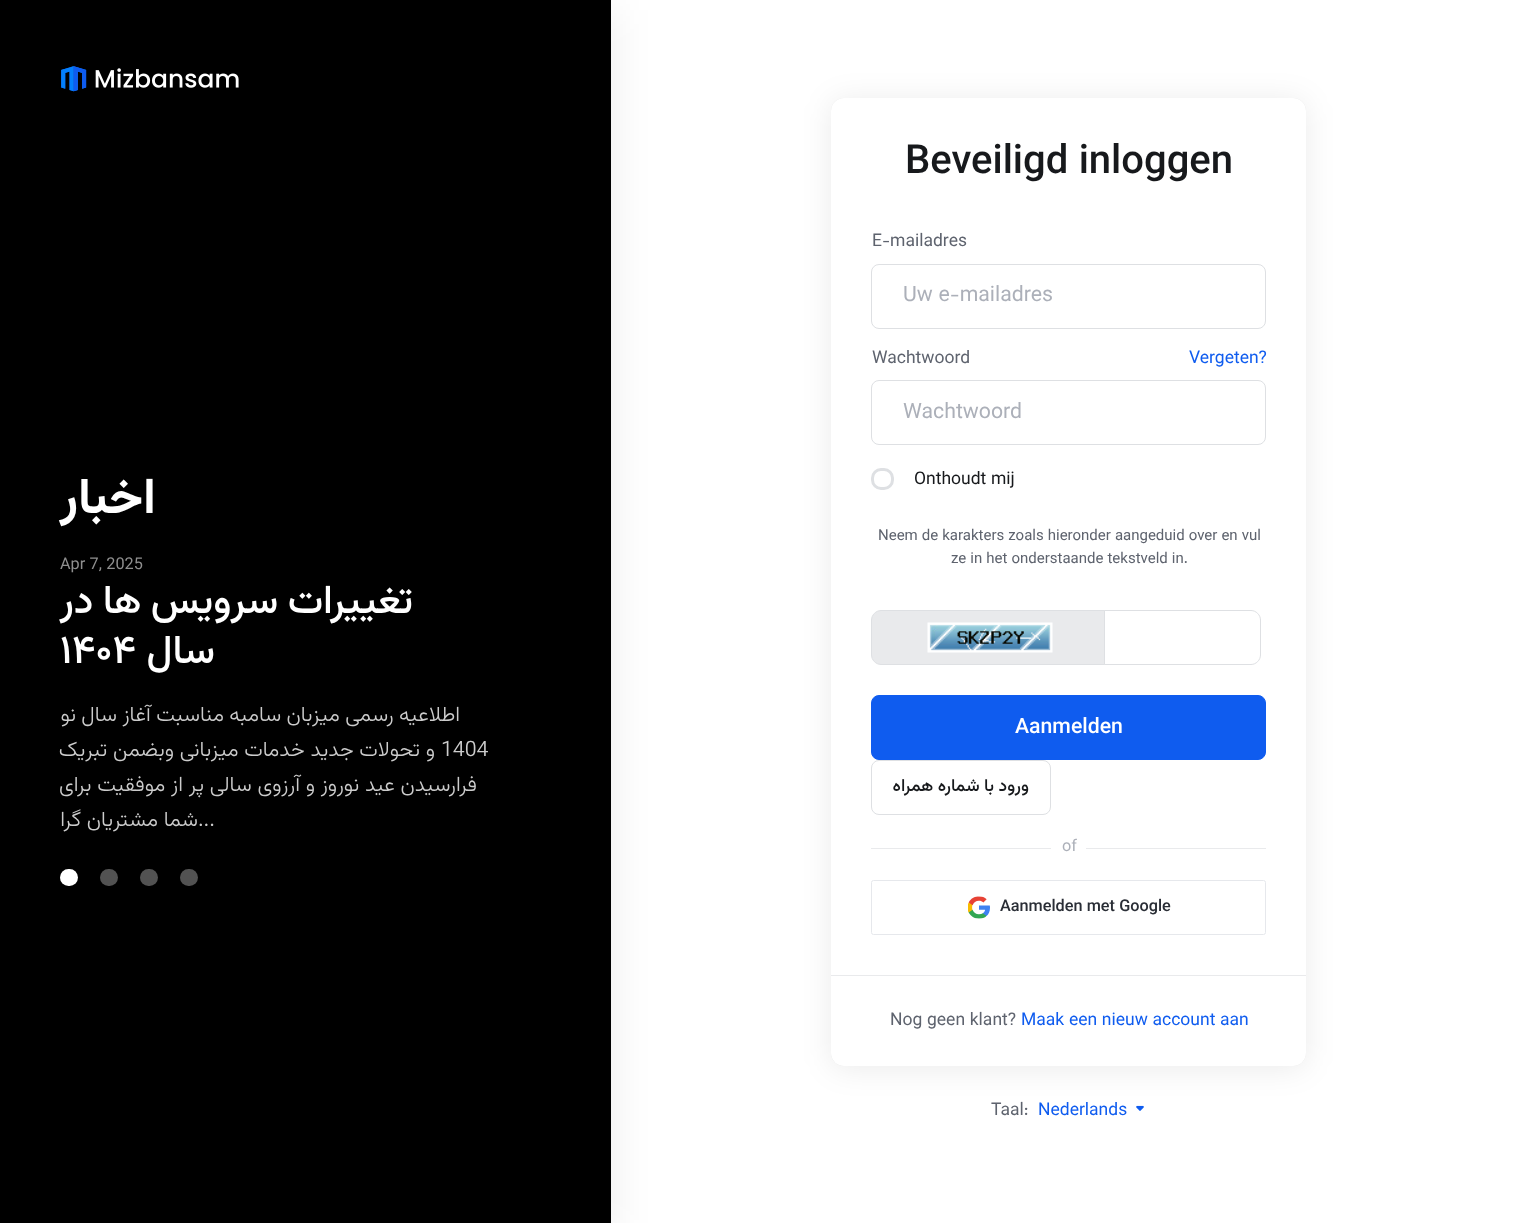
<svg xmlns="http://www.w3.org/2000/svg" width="1527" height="1223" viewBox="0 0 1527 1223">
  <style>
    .t1 { font: bold 50px Vazirmatn; direction: rtl; fill: #fff; }
    .t2 { font: 16.25px Vazirmatn; fill: #8f8f8f; }
    .t3 { font: 500 40px Vazirmatn; direction: rtl; fill: #fff; }
    .t4 { font: 500 40px Vazirmatn; fill: #fff; }
    .t5 { font: 300 21.25px Vazirmatn; direction: rtl; fill: #ccc; }
    .t6 { font: 300 21.25px Vazirmatn; fill: #ccc; }
    .t7 { font: 500 40px Vazirmatn; fill: #17191c; }
    .t8 { font: 17.5px Vazirmatn; fill: #5e636e; }
    .t9 { font: 21.25px Vazirmatn; fill: #acb0b9; }
    .t10 { font: 17.5px Vazirmatn; fill: #0f5cef; }
    .t11 { font: 17.5px Vazirmatn; fill: #17191c; }
    .t12 { font: 15px Vazirmatn; fill: #5e636e; }
    .t13 { font: 500 21.25px Vazirmatn; fill: #fff; }
    .t14 { font: 500 17.5px Vazirmatn; direction: rtl; fill: #17191c; }
    .t15 { font: 16.25px Vazirmatn; fill: #acb0b9; }
    .t16 { font: 500 16.25px Vazirmatn; fill: #2a2e36; }
  </style>
  <rect width="100%" height="100%" fill="#fff"/>
  <rect x="0" y="10" width="611" height="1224" fill="#00000014" filter="blur(20px)"/>
  <rect x="0" y="0" width="611" height="1223" fill="#000"/>
  <image x="61" y="66" width="178" height="26" href="images/1.png"/>
  <text x="156" y="513" class="t1">اخبار</text>
  <text x="60" y="569" class="t2">Apr 7, 2025</text>
  <text x="413" y="613" word-spacing="-1" class="t3">تغییرات سرویس ها در</text>
  <text x="60" y="663" class="t4">۱۴۰۴</text>
  <text x="215" y="663" class="t3">سال</text>
  <text x="460" y="721" word-spacing="-0.25" class="t5">اطلاعیه رسمی میزبان سامبه مناسبت آغاز سال نو</text>
  <text x="435" y="756" class="t5">و تحولات جدید خدمات میزبانی وبضمن تبریک</text>
  <text x="441" y="756" class="t6">1404</text>
  <text x="477" y="791" class="t5">فرارسیدن عید نوروز و آرزوی سالی پر از موفقیت برای</text>
  <text x="198" y="826" class="t5">شما مشتریان گرا</text>
  <text x="198" y="826" class="t6">...</text>
  <rect x="60" y="869" width="18" height="17" rx="8.5" fill="#fff"/>
  <rect x="100" y="869" width="18" height="17" rx="8.5" fill="#525252"/>
  <rect x="140" y="869" width="18" height="17" rx="8.5" fill="#525252"/>
  <rect x="180" y="869" width="18" height="17" rx="8.5" fill="#525252"/>
  <rect x="831" y="100" width="475" height="969" rx="13" fill="#00000014" filter="blur(15px)"/>
  <rect x="831" y="98" width="475" height="968" rx="13" fill="#0000001a" filter="blur(0.5px)"/>
  <rect x="831" y="98" width="475" height="968" rx="13" fill="#fff"/>
  <text x="905" y="173" class="t7">Beveiligd inloggen</text>
  <text x="872" y="246" class="t8">E-mailadres</text>
  <rect x="871.5" y="264.5" width="394" height="64" rx="7.5" fill="none" stroke="#dee0e3"/>
  <text x="903" y="301" class="t9">Uw e-mailadres</text>
  <text x="872" y="363" class="t8">Wachtwoord</text>
  <text x="1189" y="363" class="t10">Vergeten?</text>
  <rect x="871.5" y="380.5" width="394" height="64" rx="7.5" fill="none" stroke="#dee0e3"/>
  <text x="903" y="418" class="t9">Wachtwoord</text>
  <rect x="872.5" y="469.5" width="20" height="19" rx="8.5" fill="none" stroke="#dee0e3" stroke-width="3"/>
  <text x="914" y="484" class="t11">Onthoudt mij</text>
  <text x="878" y="540" class="t12">Neem de karakters zoals hieronder aangeduid over en vul</text>
  <text x="951" y="563" class="t12">ze in het onderstaande tekstveld in.</text>
  <path d="M881 610.5H1108.5V664.5H881C876 664.5 871.5 660 871.5 655V620C871.5 615 876 610.5 881 610.5Z" fill="#e9eaec" stroke="#dee0e3"/>
  <image x="927" y="622" width="126" height="31" href="images/2.png"/>
  <path d="M1104.5 610.5H1251C1256 610.5 1260.5 615 1260.5 620V655C1260.5 660 1256 664.5 1251 664.5H1104.5Z" fill="#fff" stroke="#dee0e3"/>
  <rect x="871.5" y="695.5" width="394" height="64" rx="7.5" fill="#0f5cef" stroke="#0f5cef"/>
  <text x="1015" y="733" class="t13">Aanmelden</text>
  <rect x="871.5" y="760.5" width="179" height="54" rx="7.5" fill="none" stroke="#dee0e3"/>
  <text x="1029" y="791" class="t14">ورود با شماره همراه</text>
  <rect x="871" y="848" width="180" height="1" fill="#e9eaec"/>
  <text x="1062" y="851" class="t15">of</text>
  <rect x="1086" y="848" width="180" height="1" fill="#e9eaec"/>
  <rect x="871.5" y="880.5" width="394" height="54" rx="2" fill="none" stroke="#e6e8ec"/>
  <image x="968" y="896" width="22" height="23" href="images/3.png"/>
  <text x="1000" y="911" class="t16">Aanmelden met Google</text>
  <rect x="831" y="975" width="475" height="1" fill="#e9eaec"/>
  <text x="890" y="1025" class="t8">Nog geen klant?</text>
  <text x="1021" y="1025" class="t10">Maak een nieuw account aan</text>
  <text x="991" y="1115" class="t8">Taal:</text>
  <text x="1038" y="1115" class="t10">Nederlands</text>
  <image x="1136" y="1105" width="8" height="6" href="images/4.png"/>
</svg>
